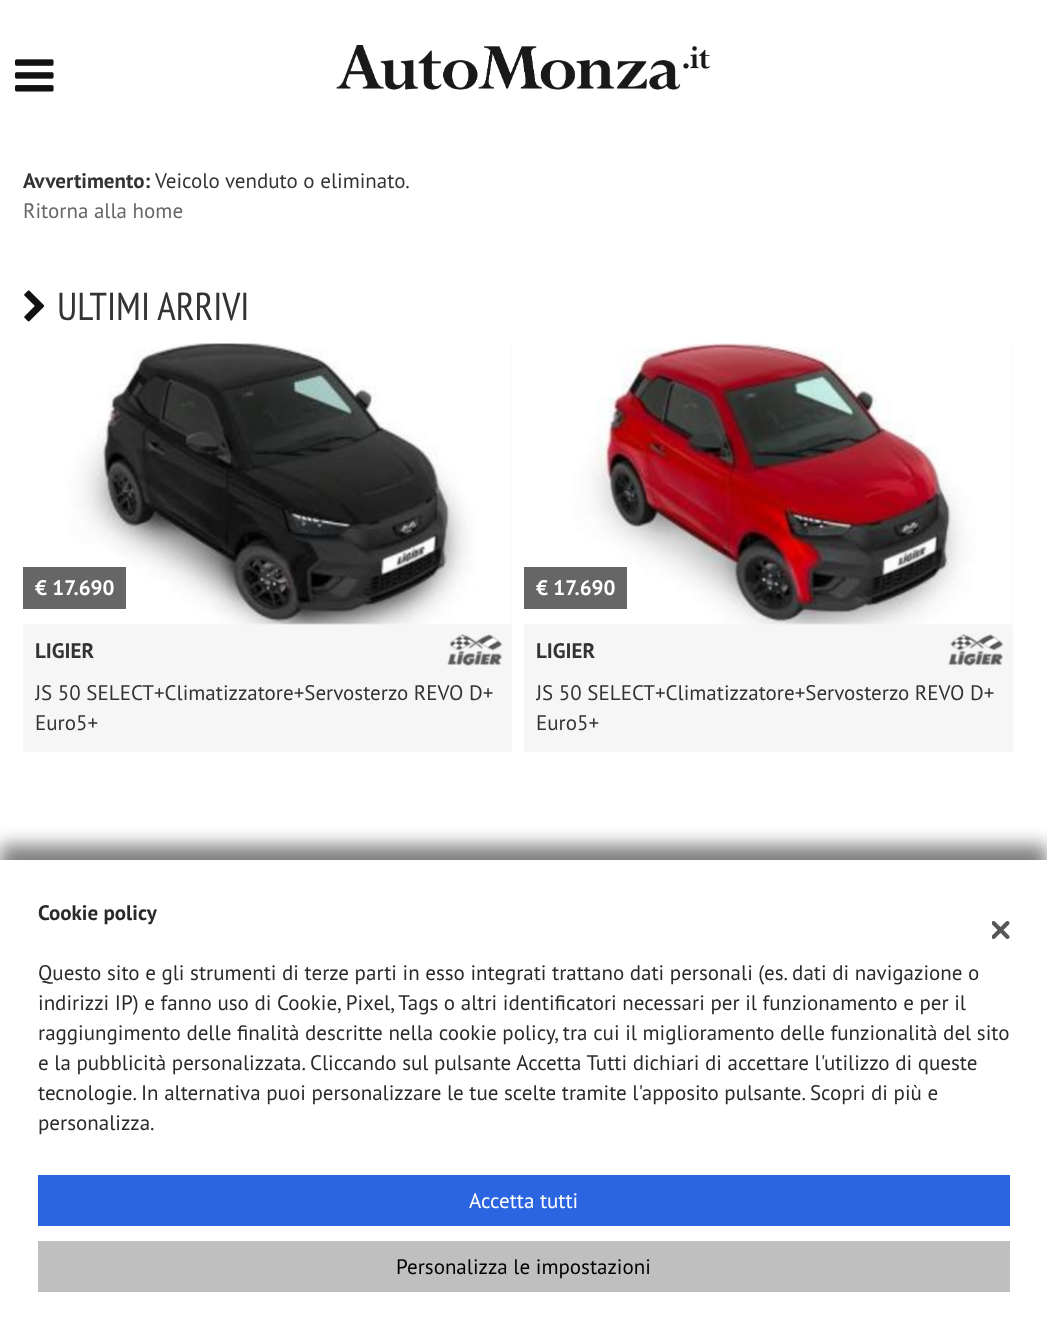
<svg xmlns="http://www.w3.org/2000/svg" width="1047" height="1343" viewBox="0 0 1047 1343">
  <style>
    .t1 { font: bold 21px PT Sans; fill: #333; }
    .t2 { font: 21px PT Sans; fill: #333; }
    .t3 { font: 21px PT Sans; fill: #666; }
    .t4 { font: 39px PT Sans Narrow; fill: #333; }
    .t5 { font: bold 21px PT Sans; fill: #fff; }
    .t6 { font: bold 21px PT Sans; fill: #2b2929; }
    .t7 { font: 21px PT Sans; fill: #2b2929; }
    .t8 { font: 21px PT Sans; fill: #fff; }
    .t9 { font: 21px PT Sans; fill: #000; }
  </style>
  <defs>
    <clipPath id="clip1"><rect x="35" y="678" width="465" height="60"/></clipPath>
    <clipPath id="clip2"><rect x="536" y="678" width="465" height="60"/></clipPath>
  </defs>
  <rect width="100%" height="100%" fill="#fff"/>
  <image x="15" y="59" width="39" height="33" href="images/1.png"/>
  <image x="336" y="45" width="374" height="45" href="images/2.png"/>
  <text x="23" y="188" class="t1">Avvertimento:</text>
  <text x="155" y="188" class="t2">Veicolo venduto o eliminato.</text>
  <text x="23" y="218" class="t3">Ritorna alla home</text>
  <image x="24" y="290" width="21" height="32" href="images/3.png"/>
  <text x="57" y="320" class="t4">ULTIMI ARRIVI</text>
  <rect x="23" y="344" width="489" height="408" fill="#f6f6f6"/>
  <image x="23" y="343" width="489" height="282" href="images/4.png"/>
  <rect x="23" y="567" width="103" height="42" fill="#666"/>
  <text x="35" y="595" class="t5">€ 17.690</text>
  <text x="35" y="658" class="t1">LIGIER</text>
  <image x="447" y="634" width="55" height="32" href="images/5.png"/>
  <g clip-path="url(#clip1)">
    <text x="35" y="700" class="t2">JS 50 SELECT+Climatizzatore+Servosterzo REVO D+</text>
  </g>
  <text x="35" y="730" class="t2">Euro5+</text>
  <rect x="524" y="344" width="489" height="408" fill="#f6f6f6"/>
  <image x="524" y="343" width="489" height="282" href="images/6.png"/>
  <rect x="524" y="567" width="103" height="42" fill="#666"/>
  <text x="536" y="595" class="t5">€ 17.690</text>
  <text x="536" y="658" class="t1">LIGIER</text>
  <image x="948" y="634" width="55" height="32" href="images/5.png"/>
  <g clip-path="url(#clip2)">
    <text x="536" y="700" class="t2">JS 50 SELECT+Climatizzatore+Servosterzo REVO D+</text>
  </g>
  <text x="536" y="730" class="t2">Euro5+</text>
  <rect x="0" y="845" width="1047" height="484" fill="#00000080" filter="blur(9px)"/>
  <rect x="0" y="860" width="1047" height="483" fill="#fff"/>
  <text x="38" y="920" class="t6">Cookie policy</text>
  <text x="38" y="980" class="t7">Questo sito e gli strumenti di terze parti in esso integrati trattano dati personali (es. dati di navigazione o</text>
  <text x="38" y="1010" class="t7">indirizzi IP) e fanno uso di Cookie, Pixel, Tags o altri identificatori necessari per il funzionamento e per il</text>
  <text x="38" y="1040" class="t7">raggiungimento delle finalità descritte nella cookie policy, tra cui il miglioramento delle funzionalità del sito</text>
  <text x="38" y="1070" class="t7">e la pubblicità personalizzata. Cliccando sul pulsante Accetta Tutti dichiari di accettare l'utilizzo di queste</text>
  <text x="38" y="1100" class="t7">tecnologie. In alternativa puoi personalizzare le tue scelte tramite l'apposito pulsante. Scopri di più e</text>
  <text x="38" y="1130" class="t7">personalizza.</text>
  <image x="992" y="921" width="18" height="18" href="images/7.png"/>
  <rect x="38" y="1175" width="972" height="51" fill="#2c65e1"/>
  <text x="469" y="1208" class="t8">Accetta tutti</text>
  <rect x="38" y="1241" width="972" height="51" fill="#bfbfbf"/>
  <text x="396" y="1274" class="t9">Personalizza le impostazioni</text>
</svg>
